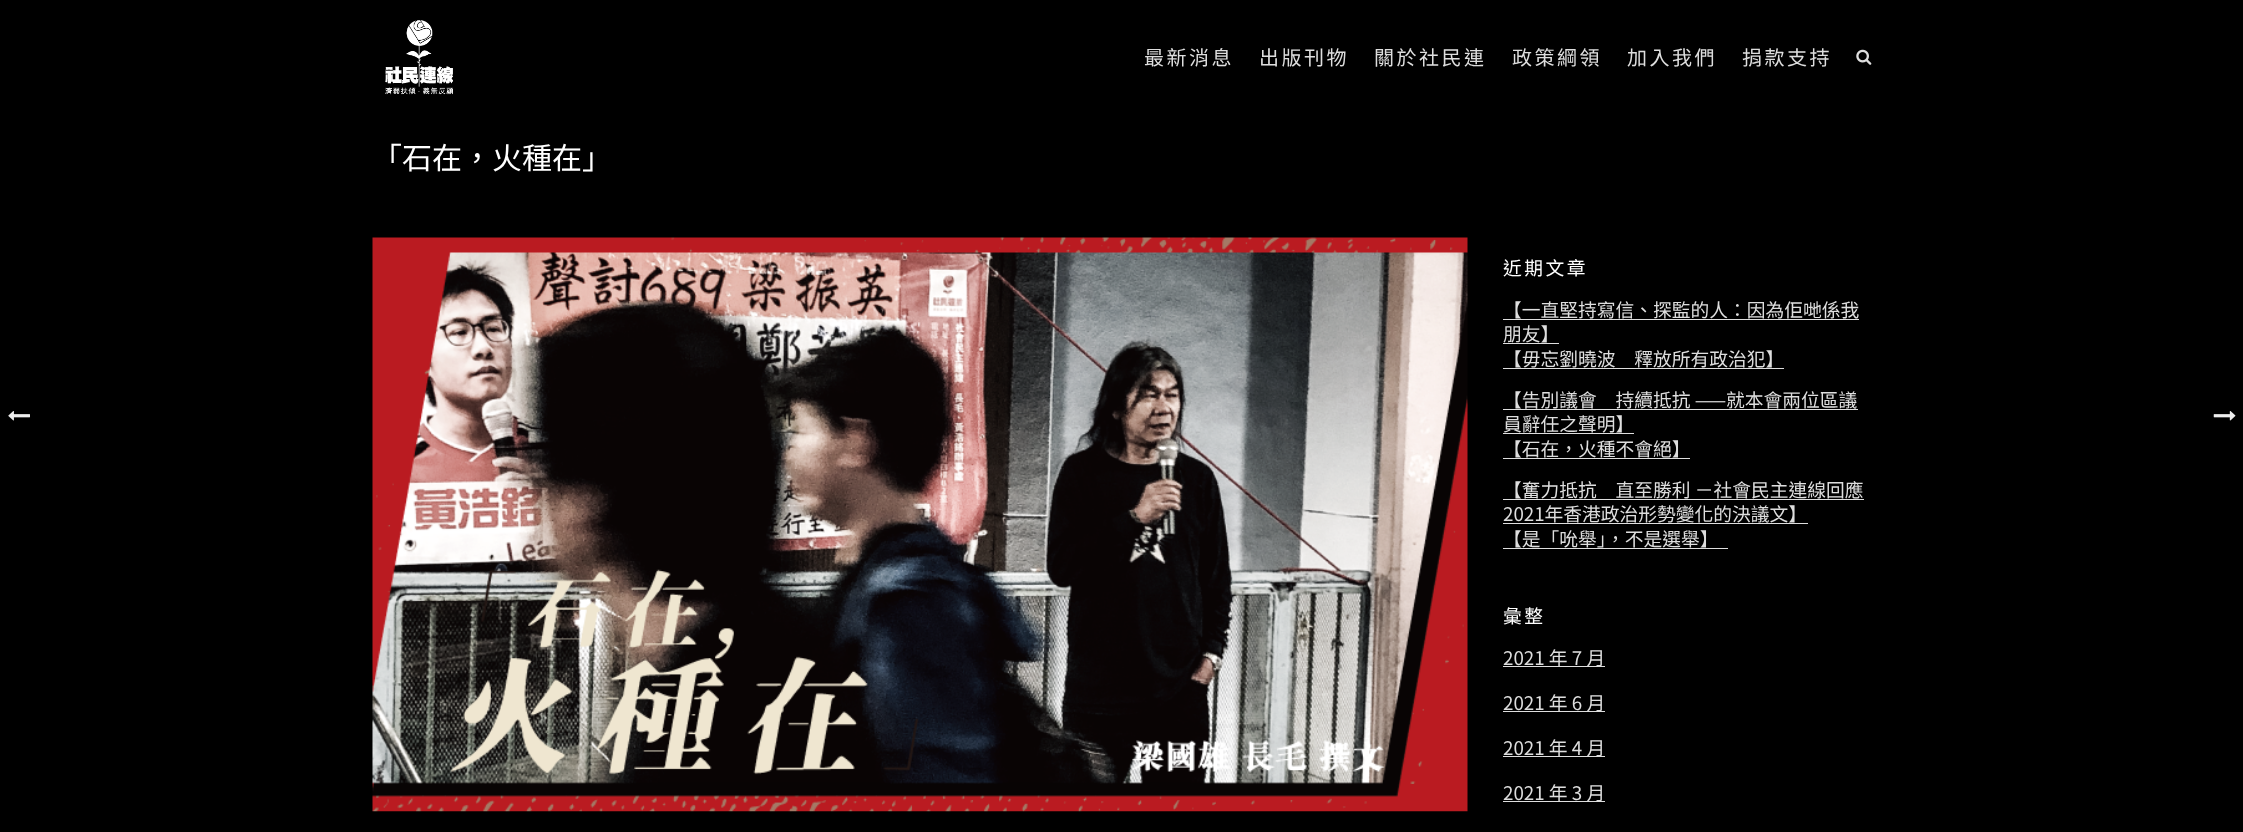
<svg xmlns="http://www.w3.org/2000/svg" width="2243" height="832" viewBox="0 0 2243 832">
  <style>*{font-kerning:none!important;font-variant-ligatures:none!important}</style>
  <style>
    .t1 { font: 20px Noto Sans TC; letter-spacing: 2.5px; fill: #dedede; }
    .t2 { font: 30px Noto Sans TC; fill: #fff; }
    .t3 { font: 18.75px Noto Sans CJK HK; letter-spacing: 2.5px; fill: #fff; }
    .t4 { font: 18.75px Noto Sans TC; fill: #dedede; }
  </style>
  <rect width="100%" height="100%" fill="#000"/>
  <image x="385" y="20" width="68" height="75" href="images/1.png"/>
  <text x="1144" y="65" class="t1">最新消息</text>
  <text x="1259" y="65" class="t1">出版刊物</text>
  <text x="1374" y="65" class="t1">關於社民連</text>
  <text x="1512" y="65" class="t1">政策綱領</text>
  <text x="1627" y="65" class="t1">加入我們</text>
  <text x="1742" y="65" class="t1">捐款支持</text>
  <image x="1856" y="49" width="16" height="16" href="images/2.png"/>
  <text x="372" y="169" class="t2">「石在，火種在」</text>
  <image x="8" y="411" width="22" height="10" href="images/3.png"/>
  <image x="372" y="237" width="1096" height="575" href="images/4.png"/>
  <text x="1503" y="275" class="t3">近期文章</text>
  <text x="1503" y="317" class="t4">【一直堅持寫信、探監的人：因為佢哋係我</text>
  <rect x="1503" y="319" width="356" height="1" fill="#dedede"/>
  <text x="1503" y="341" class="t4">朋友】</text>
  <rect x="1503" y="343" width="56" height="1" fill="#dedede"/>
  <text x="1503" y="366" class="t4">【毋忘劉曉波　釋放所有政治犯】</text>
  <rect x="1503" y="368" width="281" height="1" fill="#dedede"/>
  <text x="1503" y="407" class="t4">【告別議會　持續抵抗 ——就本會兩位區議</text>
  <rect x="1503" y="409" width="355" height="1" fill="#dedede"/>
  <text x="1503" y="431" class="t4">員辭任之聲明】</text>
  <rect x="1503" y="433" width="131" height="1" fill="#dedede"/>
  <text x="1503" y="456" class="t4">【石在，火種不會絕】</text>
  <rect x="1503" y="458" width="187" height="1" fill="#dedede"/>
  <text x="1503" y="497" class="t4">【奮力抵抗　直至勝利 －社會民主連線回應</text>
  <rect x="1503" y="499" width="361" height="1" fill="#dedede"/>
  <text x="1503" y="521" class="t4">2021年香港政治形勢變化的決議文】</text>
  <rect x="1503" y="523" width="305" height="1" fill="#dedede"/>
  <text x="1503" y="546" class="t4">【是「吮舉」，不是選舉】</text>
  <rect x="1503" y="548" width="225" height="1" fill="#dedede"/>
  <text x="1503" y="623" class="t3">彙整</text>
  <rect x="1503" y="666" width="102" height="1" fill="#dedede"/>
  <text x="1503" y="665" class="t4">2021 年 7 月</text>
  <rect x="1503" y="711" width="102" height="1" fill="#dedede"/>
  <text x="1503" y="710" class="t4">2021 年 6 月</text>
  <rect x="1503" y="756" width="102" height="1" fill="#dedede"/>
  <text x="1503" y="755" class="t4">2021 年 4 月</text>
  <rect x="1503" y="801" width="102" height="1" fill="#dedede"/>
  <text x="1503" y="800" class="t4">2021 年 3 月</text>
  <image x="2213" y="411" width="23" height="10" href="images/5.png"/>
</svg>
